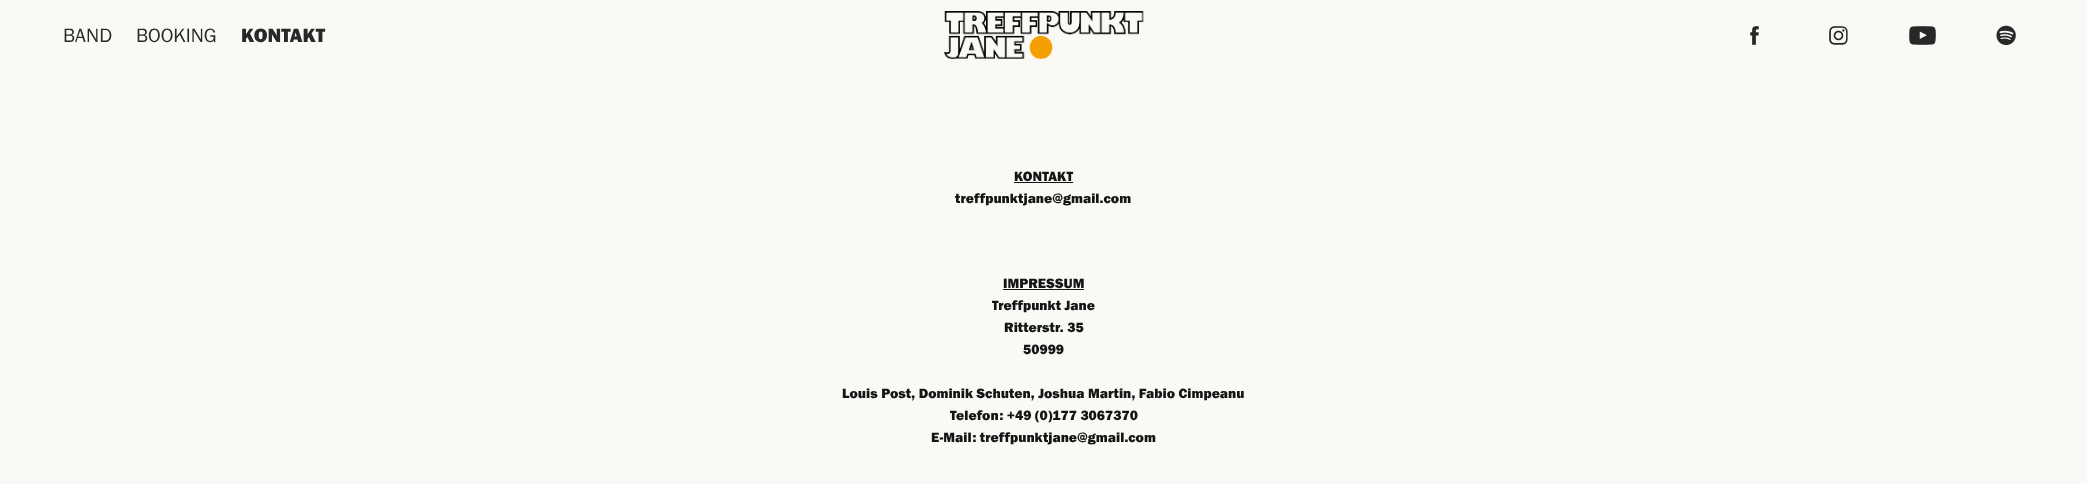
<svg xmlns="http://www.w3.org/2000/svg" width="2087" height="484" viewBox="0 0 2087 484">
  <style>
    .t1 { font: 20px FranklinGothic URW; fill: #282828; }
    .t2 { font: 900 20px FranklinGothic URW; fill: #282828; }
    .t3 { font: 900 14px FranklinGothic URW; fill: #151515; }
  </style>
  <rect width="100%" height="100%" fill="#fbf9f5"/>
  <text x="63" y="42" class="t1">BAND</text>
  <text x="136" y="42" class="t1">BOOKING</text>
  <text x="241" y="42" class="t2">KONTAKT</text>
  <image x="944" y="11" width="200" height="48" href="images/1.png"/>
  <image x="1750" y="26" width="9" height="19" href="images/2.png"/>
  <image x="1829" y="26" width="19" height="19" href="images/3.png"/>
  <image x="1909" y="26" width="27" height="19" href="images/4.png"/>
  <image x="1996" y="25" width="20" height="21" href="images/5.png"/>
  <text x="1014" y="181" class="t3">KONTAKT</text>
  <rect x="1014" y="182" width="59" height="1" fill="#151515"/>
  <text x="955" y="203" class="t3">treffpunktjane@gmail.com</text>
  <text x="1003" y="288" class="t3">IMPRESSUM</text>
  <rect x="1003" y="289" width="81" height="1" fill="#151515"/>
  <text x="992" y="310" class="t3">Treffpunkt Jane</text>
  <text x="1004" y="332" class="t3">Ritterstr. 35</text>
  <text x="1023" y="354" class="t3">50999</text>
  <text x="842" y="398" class="t3">Louis Post, Dominik Schuten, Joshua Martin, Fabio Cimpeanu</text>
  <text x="950" y="420" class="t3">Telefon: +49 (0)177 3067370</text>
  <text x="931" y="442" class="t3">E-Mail: treffpunktjane@gmail.com</text>
</svg>
